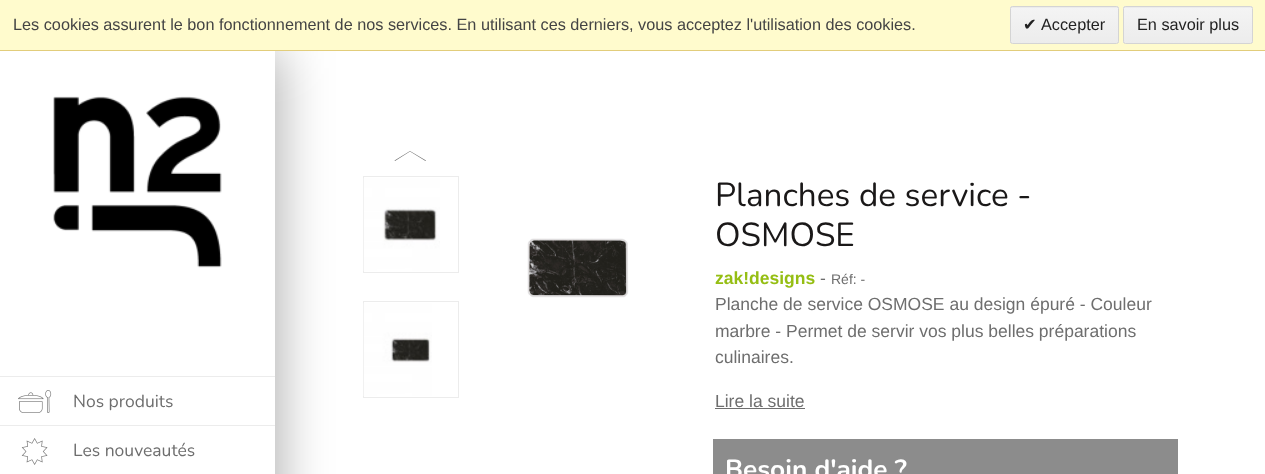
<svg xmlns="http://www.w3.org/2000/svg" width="1265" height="474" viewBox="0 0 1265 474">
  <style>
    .t1 { font: 16.25px Liberation Sans; fill: #444; }
    .t2 { font: 16.25px DejaVu Sans; fill: #222; }
    .t3 { font: 16.25px Liberation Sans; fill: #222; }
    .t4 { font: 17.5px Nunito; fill: #6e6e6e; }
    .t5 { font: 33.25px Nunito; fill: #1a1818; }
    .t6 { font: bold 17.5px Liberation Sans; fill: #95be13; }
    .t7 { font: 17.5px Liberation Sans; fill: #6e6e6e; }
    .t8 { font: 14px Liberation Sans; fill: #6e6e6e; }
    .t9 { font: bold 26.25px Nunito; fill: #fff; }
  </style>
  <defs>
    <clipPath id="clip1"><rect x="1010" y="6" width="109" height="38" rx="2.5"/></clipPath>
    <linearGradient id="g1" gradientUnits="userSpaceOnUse" x1="1064" y1="-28" x2="1064" y2="7.5"><stop offset="0" stop-color="#f4f4f4"/><stop offset="1" stop-color="#ececec"/></linearGradient>
    <linearGradient id="g2" gradientUnits="userSpaceOnUse" x1="1064" y1="7.5" x2="1064" y2="43"><stop offset="0" stop-color="#f4f4f4"/><stop offset="1" stop-color="#ececec"/></linearGradient>
    <clipPath id="clip2"><rect x="1123" y="6" width="130" height="38" rx="2.5"/></clipPath>
    <linearGradient id="g3" gradientUnits="userSpaceOnUse" x1="1188" y1="-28" x2="1188" y2="7.5"><stop offset="0" stop-color="#f4f4f4"/><stop offset="1" stop-color="#ececec"/></linearGradient>
    <linearGradient id="g4" gradientUnits="userSpaceOnUse" x1="1188" y1="7.5" x2="1188" y2="43"><stop offset="0" stop-color="#f4f4f4"/><stop offset="1" stop-color="#ececec"/></linearGradient>
  </defs>
  <rect width="100%" height="100%" fill="#fff"/>
  <rect x="6" y="51" width="275" height="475" fill="#0000004d" filter="blur(25px)"/>
  <rect x="0" y="0" width="1265" height="50" fill="#fffbcd"/>
  <rect x="0" y="50" width="1265" height="1" fill="#e2cd7b"/>
  <text x="13" y="30" class="t1">Les cookies assurent le bon fonctionnement de nos services. En utilisant ces derniers, vous acceptez l'utilisation des cookies.</text>
  <g clip-path="url(#clip1)">
    <rect x="1010" y="6" width="109" height="2" fill="url(#g1)"/>
  </g>
  <rect x="1010" y="8" width="109" height="35" fill="url(#g2)"/>
  <rect x="1010.5" y="6.5" width="108" height="37" rx="2" fill="none" stroke="#d4d4d4"/>
  <text x="1023" y="30" class="t2">✔</text>
  <text x="1041" y="30" class="t3">Accepter</text>
  <g clip-path="url(#clip2)">
    <rect x="1123" y="6" width="130" height="2" fill="url(#g3)"/>
  </g>
  <rect x="1123" y="8" width="130" height="35" fill="url(#g4)"/>
  <rect x="1123.5" y="6.5" width="129" height="37" rx="2" fill="none" stroke="#d4d4d4"/>
  <text x="1137" y="30" class="t3">En savoir plus</text>
  <rect x="0" y="51" width="275" height="423" fill="#fff"/>
  <image x="53" y="96" width="169" height="172" href="images/1.png"/>
  <image x="18" y="390" width="34" height="23" href="images/2.png"/>
  <rect x="0" y="376" width="275" height="1" fill="#ececec"/>
  <rect x="0" y="425" width="275" height="1" fill="#ececec"/>
  <text x="73" y="407" class="t4">Nos produits</text>
  <image x="21" y="438" width="27" height="27" href="images/3.png"/>
  <text x="73" y="456" class="t4">Les nouveautés</text>
  <path d="M425.5 161L410 151.5L395 161L394.5 160.5L410 151L426 160.5Z" fill="#6e6e6e"/>
  <rect x="363.5" y="176.5" width="95" height="96" fill="none" stroke="#ececec"/>
  <image x="363" y="178" width="77" height="93" href="images/4.png"/>
  <rect x="363.5" y="301.5" width="95" height="96" fill="none" stroke="#ececec"/>
  <image x="363" y="303" width="69" height="93" href="images/5.png"/>
  <image x="527" y="238" width="102" height="60" href="images/6.png"/>
  <text x="715" y="206" class="t5">Planches de service -</text>
  <text x="715" y="246" class="t5">OSMOSE</text>
  <text x="715" y="284" class="t6">zak!designs</text>
  <text x="820" y="284" class="t7">-</text>
  <text x="831" y="284" class="t8">Réf: -</text>
  <text x="715" y="310" class="t7">Planche de service OSMOSE au design épuré - Couleur</text>
  <text x="715" y="337" class="t7">marbre - Permet de servir vos plus belles préparations</text>
  <text x="715" y="363" class="t7">culinaires.</text>
  <text x="715" y="407" class="t7">Lire la suite</text>
  <rect x="715" y="408" width="90" height="1" fill="#6e6e6e"/>
  <rect x="713" y="439" width="465" height="35" fill="#8c8c8c"/>
  <text x="725" y="478" class="t9">Besoin d'aide ?</text>
</svg>
